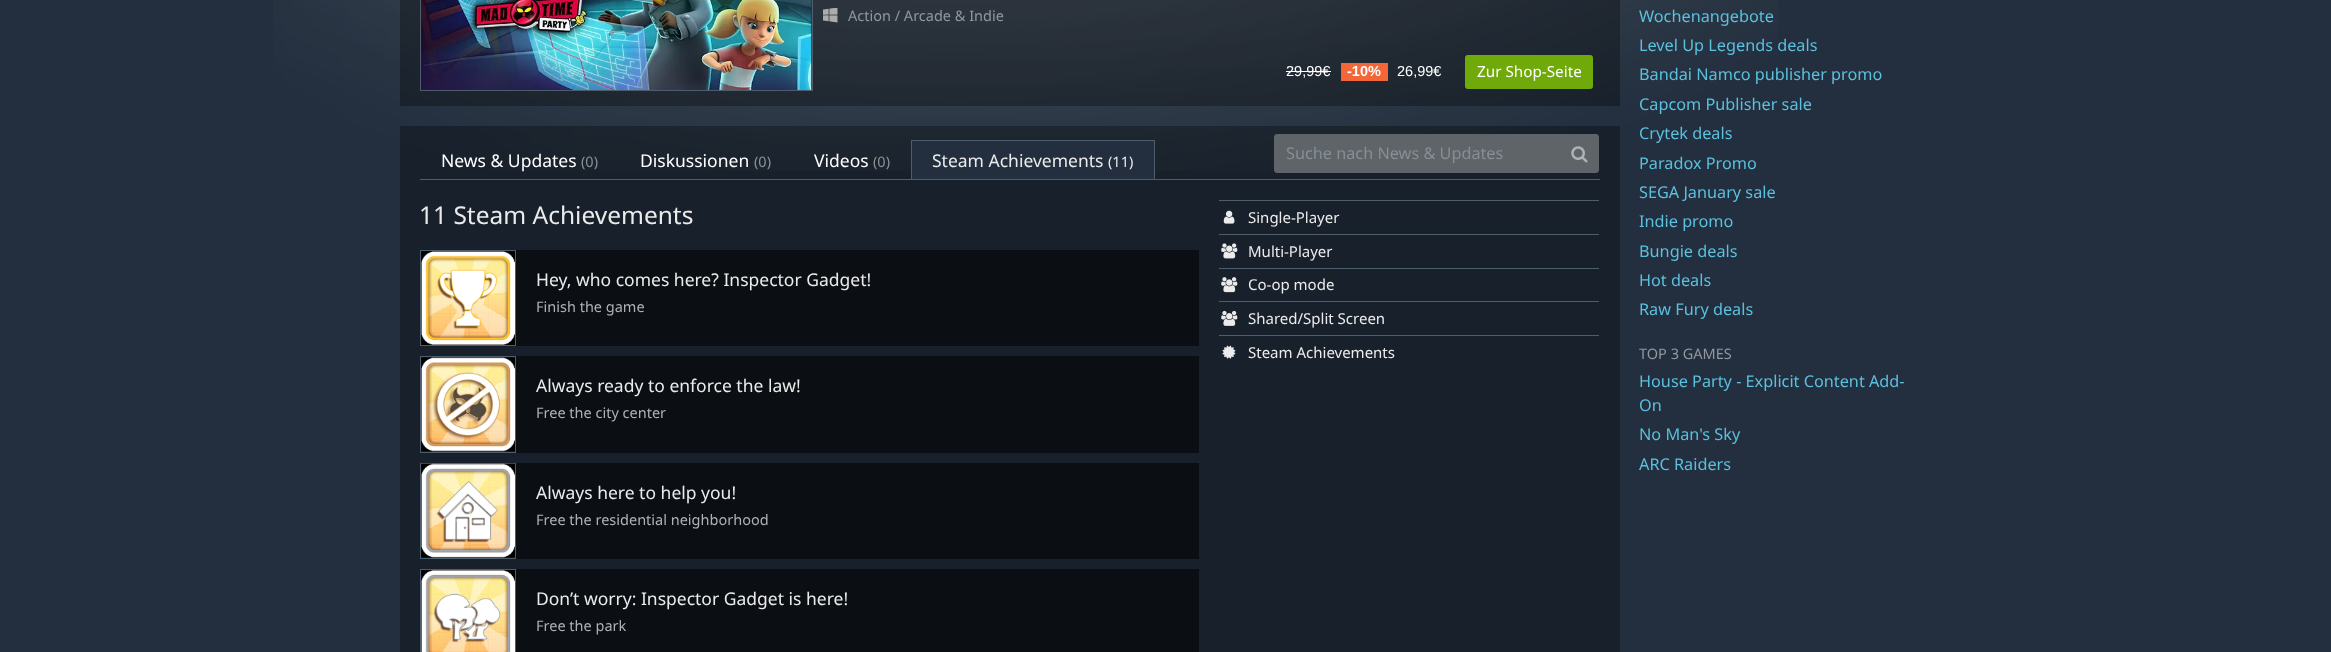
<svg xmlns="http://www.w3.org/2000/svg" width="2331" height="652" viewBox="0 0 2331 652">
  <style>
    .t1 { font: 14.5px Noto Sans; fill: #91979f; }
    .t2 { font: 14.5px Liberation Sans; fill: #fff; }
    .t3 { font: bold 14.5px Liberation Sans; fill: #fff; }
    .t4 { font: 15.25px Noto Sans; fill: #fff; }
    .t5 { font: 17.5px Noto Sans; fill: #fff; }
    .t6 { font: 14.5px Noto Sans; fill: #8d9196; }
    .t7 { font: 17.5px Noto Sans; fill: #ebebeb; }
    .t8 { font: 14.5px Noto Sans; fill: #ebebeb; }
    .t9 { font: 16.25px Noto Sans; fill: #868e96; }
    .t10 { font: 24.5px Noto Sans; fill: #ebebeb; }
    .t11 { font: 14.5px Noto Sans; fill: #acb2b8; }
    .t12 { font: 15px Noto Sans; fill: #ebebeb; }
    .t13 { font: 16.25px Noto Sans; fill: #5bc0de; }
  </style>
  <defs>
    <clipPath id="clip1"><rect x="420" y="140" width="1180" height="39"/></clipPath>
  </defs>
  <rect width="100%" height="100%" fill="#232f3e"/>
  <image x="273" y="0" width="1505" height="171" href="images/1.png"/>
  <rect x="400" y="0" width="1220" height="106" fill="#0000004d"/>
  <rect x="420.5" y="-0.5" width="392" height="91" fill="none" stroke="#4e5d6c"/>
  <image x="421" y="0" width="391" height="90" href="images/2.png"/>
  <image x="823" y="8" width="15" height="15" href="images/3.png"/>
  <text x="848" y="21" class="t1">Action / Arcade &amp; Indie</text>
  <text x="1286" y="76" class="t2">29,99€</text>
  <rect x="1286" y="71" width="45" height="1" fill="#fff"/>
  <rect x="1341" y="63" width="47" height="18" fill="#f26638"/>
  <text x="1347" y="76" class="t3">-10%</text>
  <text x="1397" y="76" class="t2">26,99€</text>
  <rect x="1465.5" y="55.5" width="127" height="33" rx="2" fill="#6faa0a" stroke="#6faa0a"/>
  <text x="1477" y="77" class="t4">Zur Shop-Seite</text>
  <rect x="400" y="126" width="1220" height="526" fill="#0000004d"/>
  <rect x="420" y="179" width="1180" height="1" fill="#4e5d6c"/>
  <text x="441" y="167" class="t5">News &amp; Updates</text>
  <text x="581" y="167" class="t6">(0)</text>
  <text x="640" y="167" class="t5">Diskussionen</text>
  <text x="754" y="167" class="t6">(0)</text>
  <text x="814" y="167" class="t5">Videos</text>
  <text x="873" y="167" class="t6">(0)</text>
  <rect x="912" y="141" width="242" height="38" fill="#232f3e"/>
  <g clip-path="url(#clip1)">
    <rect x="911.5" y="140.5" width="243" height="39" fill="none" stroke="#4e5d6c"/>
  </g>
  <text x="932" y="167" class="t7">Steam Achievements</text>
  <text x="1108" y="167" class="t8">(11)</text>
  <path d="M1276.5 134.5H1560.5V172.5H1276.5C1275.5 172.5 1274.5 171.5 1274.5 170.5V136.5C1274.5 135.5 1275.5 134.5 1276.5 134.5Z" fill="#5f6468" stroke="#5f6468"/>
  <text x="1286" y="159" class="t9">Suche nach News &amp; Updates</text>
  <path d="M1560.5 134.5H1596.5C1597.5 134.5 1598.5 135.5 1598.5 136.5V170.5C1598.5 171.5 1597.5 172.5 1596.5 172.5H1560.5Z" fill="#5f6468" stroke="#5f6468"/>
  <image x="1571" y="146" width="17" height="17" href="images/4.png"/>
  <text x="419" y="224" class="t10">11 Steam Achievements</text>
  <rect x="420.5" y="250.5" width="95" height="95" fill="none" stroke="#4e5d6c"/>
  <image x="421" y="251" width="94" height="94" href="images/5.png"/>
  <rect x="516" y="250" width="683" height="96" fill="#0b0f14"/>
  <text x="536" y="286" class="t7">Hey, who comes here? Inspector Gadget!</text>
  <text x="536" y="312" class="t11">Finish the game</text>
  <rect x="420.5" y="356.5" width="95" height="96" fill="none" stroke="#4e5d6c"/>
  <image x="421" y="357" width="94" height="95" href="images/6.png"/>
  <rect x="516" y="356" width="683" height="97" fill="#0b0f14"/>
  <text x="536" y="392" class="t7">Always ready to enforce the law!</text>
  <text x="536" y="418" class="t11">Free the city center</text>
  <rect x="420.5" y="463.5" width="95" height="95" fill="none" stroke="#4e5d6c"/>
  <image x="421" y="463" width="94" height="95" href="images/7.png"/>
  <rect x="516" y="463" width="683" height="96" fill="#0b0f14"/>
  <text x="536" y="499" class="t7">Always here to help you!</text>
  <text x="536" y="525" class="t11">Free the residential neighborhood</text>
  <rect x="420.5" y="569.5" width="95" height="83" fill="none" stroke="#4e5d6c"/>
  <image x="421" y="570" width="94" height="82" href="images/8.png"/>
  <rect x="516" y="569" width="683" height="83" fill="#0b0f14"/>
  <text x="536" y="605" class="t7">Don’t worry: Inspector Gadget is here!</text>
  <text x="536" y="631" class="t11">Free the park</text>
  <rect x="1219" y="200" width="380" height="1" fill="#4e5d6c"/>
  <image x="1223" y="210" width="12" height="14" href="images/9.png"/>
  <text x="1248" y="223" class="t12">Single-Player</text>
  <rect x="1219" y="234" width="380" height="1" fill="#4e5d6c"/>
  <image x="1221" y="243" width="17" height="16" href="images/10.png"/>
  <text x="1248" y="257" class="t12">Multi-Player</text>
  <rect x="1219" y="268" width="380" height="1" fill="#4e5d6c"/>
  <image x="1221" y="277" width="17" height="16" href="images/11.png"/>
  <text x="1248" y="290" class="t12">Co-op mode</text>
  <rect x="1219" y="301" width="380" height="1" fill="#4e5d6c"/>
  <image x="1221" y="310" width="17" height="16" href="images/12.png"/>
  <text x="1248" y="324" class="t12">Shared/Split Screen</text>
  <rect x="1219" y="335" width="380" height="1" fill="#4e5d6c"/>
  <image x="1222" y="345" width="14" height="14" href="images/13.png"/>
  <text x="1248" y="358" class="t12">Steam Achievements</text>
  <text x="1639" y="22" class="t13">Wochenangebote</text>
  <text x="1639" y="51" class="t13">Level Up Legends deals</text>
  <text x="1639" y="80" class="t13">Bandai Namco publisher promo</text>
  <text x="1639" y="110" class="t13">Capcom Publisher sale</text>
  <text x="1639" y="139" class="t13">Crytek deals</text>
  <text x="1639" y="169" class="t13">Paradox Promo</text>
  <text x="1639" y="198" class="t13">SEGA January sale</text>
  <text x="1639" y="227" class="t13">Indie promo</text>
  <text x="1639" y="257" class="t13">Bungie deals</text>
  <text x="1639" y="286" class="t13">Hot deals</text>
  <text x="1639" y="315" class="t13">Raw Fury deals</text>
  <text x="1639" y="359" class="t1">TOP 3 GAMES</text>
  <text x="1639" y="387" class="t13">House Party - Explicit Content Add-</text>
  <text x="1639" y="411" class="t13">On</text>
  <text x="1639" y="440" class="t13">No Man's Sky</text>
  <text x="1639" y="470" class="t13">ARC Raiders</text>
</svg>
